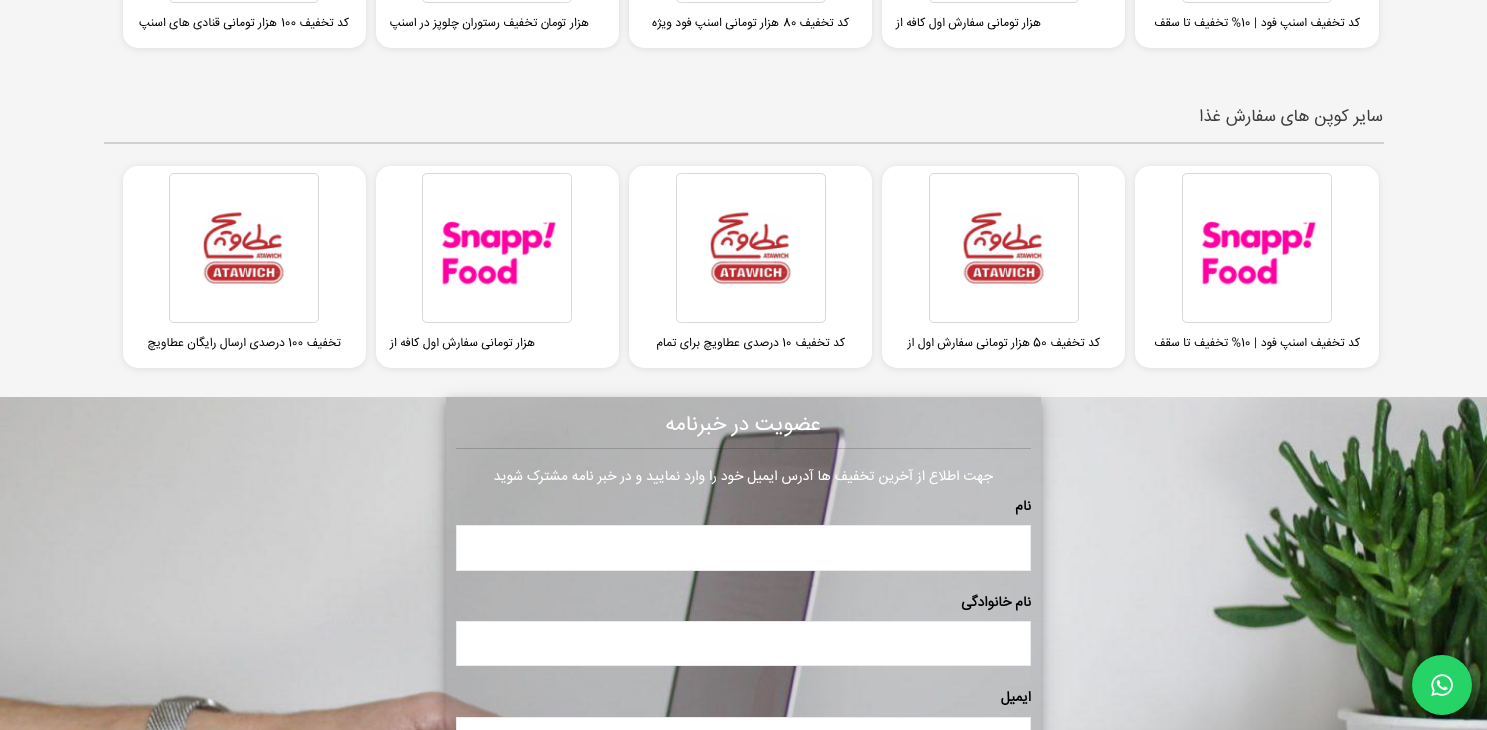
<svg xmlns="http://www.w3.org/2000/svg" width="1487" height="730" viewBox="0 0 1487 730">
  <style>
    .t1 { font: 12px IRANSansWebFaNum; direction: rtl; fill: #000; }
    .t2 { font: 12px IRANSansWebFaNum; fill: #000; }
    .t3 { font: 17px IRANSansWebFaNum; direction: rtl; fill: #3e3e3e; }
    .t4 { font: 21px IRANSansWebFaNum; direction: rtl; fill: #fff; }
    .t5 { font: 14px IRANSansWebFaNum; direction: rtl; fill: #fff; }
    .t6 { font: bold 14px IRANSansWebFaNum; direction: rtl; fill: #000; }
  </style>
  <defs>
    <clipPath id="clip1"><path d="M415 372H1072V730H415ZM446 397H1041V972H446Z" clip-rule="evenodd"/></clipPath>
    <clipPath id="clip2"><path d="M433 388H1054V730H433ZM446 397H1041V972H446Z" clip-rule="evenodd"/></clipPath>
  </defs>
  <rect width="100%" height="100%" fill="#f5f5f5"/>
  <image x="0" y="397" width="1487" height="333" href="images/5.png"/>
  <rect x="1413" y="656" width="60" height="60" rx="30" fill="#0000004d" filter="blur(2px)"/>
  <circle cx="1442" cy="685" r="30" fill="#25d366"/>
  <image x="1431" y="674" width="22" height="22" href="images/1.png"/>
  <rect x="1135" y="-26" width="244" height="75" rx="15" fill="#44444421" filter="blur(3.5px)"/>
  <rect x="1135" y="-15" width="244" height="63" rx="15" fill="#fff"/>
  <rect x="1182.5" y="-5.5" width="149" height="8" rx="4.5" fill="none" stroke="#d8d8d8"/>
  <text x="1360" y="26" class="t1">کد تخفیف اسنپ فود |</text>
  <text x="1241" y="26" class="t2">10</text>
  <text x="1241" y="26" class="t1">% تخفیف تا سقف</text>
  <rect x="882" y="-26" width="243" height="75" rx="15" fill="#44444421" filter="blur(3.5px)"/>
  <rect x="882" y="-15" width="243" height="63" rx="15" fill="#fff"/>
  <rect x="929.5" y="-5.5" width="149" height="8" rx="4.5" fill="none" stroke="#d8d8d8"/>
  <text x="1041" y="26" class="t1">هزار تومانی سفارش اول کافه از</text>
  <rect x="629" y="-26" width="243" height="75" rx="15" fill="#44444421" filter="blur(3.5px)"/>
  <rect x="629" y="-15" width="243" height="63" rx="15" fill="#fff"/>
  <rect x="676.5" y="-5.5" width="149" height="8" rx="4.5" fill="none" stroke="#d8d8d8"/>
  <text x="849" y="26" class="t1">کد تخفیف</text>
  <text x="783" y="26" class="t2">80</text>
  <text x="779" y="26" class="t1">هزار تومانی اسنپ فود ویژه</text>
  <rect x="376" y="-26" width="243" height="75" rx="15" fill="#44444421" filter="blur(3.5px)"/>
  <rect x="376" y="-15" width="243" height="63" rx="15" fill="#fff"/>
  <rect x="422.5" y="-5.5" width="149" height="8" rx="4.5" fill="none" stroke="#d8d8d8"/>
  <text x="589" y="26" class="t1">هزار تومان تخفیف رستوران چلوپز در اسنپ</text>
  <rect x="123" y="-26" width="243" height="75" rx="15" fill="#44444421" filter="blur(3.5px)"/>
  <rect x="123" y="-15" width="243" height="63" rx="15" fill="#fff"/>
  <rect x="169.5" y="-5.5" width="149" height="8" rx="4.5" fill="none" stroke="#d8d8d8"/>
  <text x="349" y="26" class="t1">کد تخفیف</text>
  <text x="281" y="26" class="t2">100</text>
  <text x="277" y="26" class="t1">هزار تومانی قنادی های اسنپ</text>
  <rect x="104" y="142" width="1280" height="2" fill="#d0d0d0"/>
  <text x="1383" y="121" class="t3">سایر کوپن های</text>
  <text x="1276" y="121" class="t3">سفارش غذا</text>
  <rect x="1135" y="167" width="244" height="202" rx="15" fill="#44444421" filter="blur(3.5px)"/>
  <rect x="1135" y="166" width="244" height="202" rx="15" fill="#fff"/>
  <rect x="1182.5" y="173.5" width="149" height="149" rx="4.5" fill="none" stroke="#d8d8d8"/>
  <image x="1201" y="221" width="115" height="64" href="images/2.png"/>
  <text x="1360" y="346" class="t1">کد تخفیف اسنپ فود |</text>
  <text x="1241" y="346" class="t2">10</text>
  <text x="1241" y="346" class="t1">% تخفیف تا سقف</text>
  <rect x="882" y="167" width="243" height="202" rx="15" fill="#44444421" filter="blur(3.5px)"/>
  <rect x="882" y="166" width="243" height="202" rx="15" fill="#fff"/>
  <rect x="929.5" y="173.5" width="149" height="149" rx="4.5" fill="none" stroke="#d8d8d8"/>
  <image x="963" y="212" width="81" height="72" href="images/3.png"/>
  <text x="1100" y="346" class="t1">کد تخفیف</text>
  <text x="1033" y="346" class="t2">50</text>
  <text x="1030" y="346" class="t1">هزار تومانی سفارش اول از</text>
  <rect x="629" y="167" width="243" height="202" rx="15" fill="#44444421" filter="blur(3.5px)"/>
  <rect x="629" y="166" width="243" height="202" rx="15" fill="#fff"/>
  <rect x="676.5" y="173.5" width="149" height="149" rx="4.5" fill="none" stroke="#d8d8d8"/>
  <image x="710" y="212" width="81" height="72" href="images/4.png"/>
  <text x="845" y="346" class="t1">کد تخفیف</text>
  <text x="782" y="346" class="t2">10</text>
  <text x="779" y="346" class="t1">درصدی عطاویچ برای تمام</text>
  <rect x="376" y="167" width="243" height="202" rx="15" fill="#44444421" filter="blur(3.5px)"/>
  <rect x="376" y="166" width="243" height="202" rx="15" fill="#fff"/>
  <rect x="422.5" y="173.5" width="149" height="149" rx="4.5" fill="none" stroke="#d8d8d8"/>
  <image x="441" y="221" width="115" height="64" href="images/2.png"/>
  <text x="535" y="346" class="t1">هزار تومانی سفارش اول کافه از</text>
  <rect x="123" y="167" width="243" height="202" rx="15" fill="#44444421" filter="blur(3.5px)"/>
  <rect x="123" y="166" width="243" height="202" rx="15" fill="#fff"/>
  <rect x="169.5" y="173.5" width="149" height="149" rx="4.5" fill="none" stroke="#d8d8d8"/>
  <image x="203" y="212" width="81" height="72" href="images/4.png"/>
  <text x="341" y="346" class="t1">تخفیف</text>
  <text x="288" y="346" class="t2">100</text>
  <text x="285" y="346" class="t1">درصدی ارسال رایگان عطاویچ</text>
  <g clip-path="url(#clip1)">
    <rect x="446" y="403" width="595" height="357" fill="#00000030" filter="blur(10px)"/>
  </g>
  <g clip-path="url(#clip2)">
    <rect x="446" y="401" width="595" height="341" fill="#00000033" filter="blur(4px)"/>
  </g>
  <rect x="446" y="397" width="595" height="333" fill="#2929292e"/>
  <text x="821" y="430" class="t4">عضویت در خبرنامه</text>
  <rect x="456" y="448" width="575" height="1" fill="#00000014"/>
  <rect x="456" y="448" width="575" height="1" fill="#0000001a"/>
  <text x="993" y="480" class="t5">جهت اطلاع از آخرین تخفیف ها آدرس ایمیل خود را وارد نمایید و در خبر نامه مشترک شوید</text>
  <text x="1031" y="510" class="t6">نام</text>
  <rect x="456.5" y="525.5" width="574" height="45" fill="#fff" stroke="#ebebeb"/>
  <text x="1031" y="606" class="t6">نام خانوادگی</text>
  <rect x="456.5" y="621.5" width="574" height="44" fill="#fff" stroke="#ebebeb"/>
  <text x="1031" y="701" class="t6">ایمیل</text>
  <rect x="456.5" y="717.5" width="574" height="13" fill="#fff" stroke="#ebebeb"/>
</svg>
